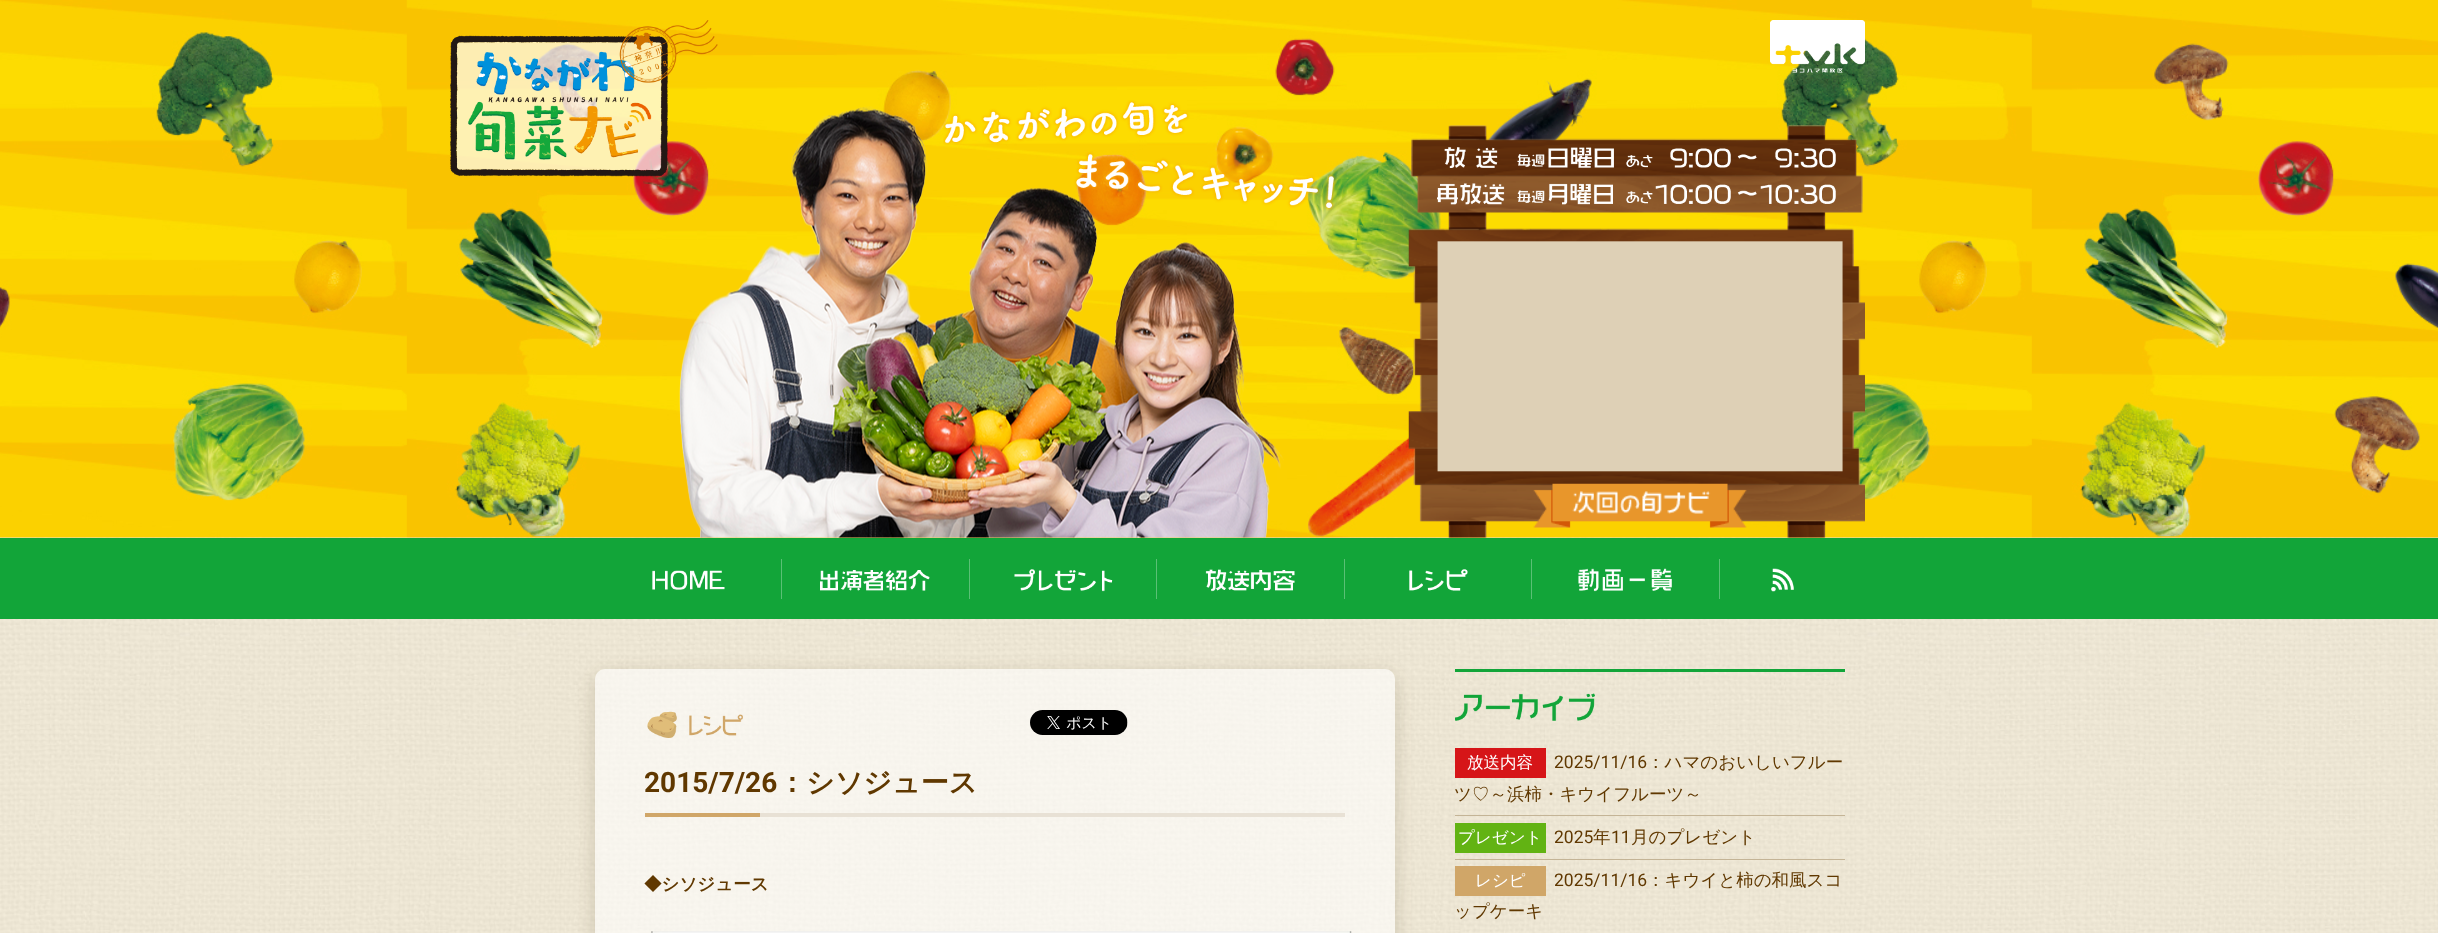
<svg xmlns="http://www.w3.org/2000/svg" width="2438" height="933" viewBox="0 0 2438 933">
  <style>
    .t1 { font: bold 28px Roboto; fill: #603800; }
    .t2 { font: bold 28px WenQuanYi Zen Hei; fill: #603800; }
    .t3 { font: bold 17.5px WenQuanYi Zen Hei; fill: #603800; }
    .t4 { font: 500 16.5px WenQuanYi Zen Hei; fill: #fff; }
    .t5 { font: 17.5px Roboto; fill: #603800; }
    .t6 { font: 500 17.5px WenQuanYi Zen Hei; fill: #603800; }
  </style>
  <defs>
    <clipPath id="clip1"><path d="M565 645H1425V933H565ZM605 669H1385C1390.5 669 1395 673.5 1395 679V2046C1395 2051.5 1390.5 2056 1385 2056H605C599.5 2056 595 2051.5 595 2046V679C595 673.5 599.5 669 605 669Z" clip-rule="evenodd"/></clipPath>
  </defs>
  <rect width="100%" height="100%" fill="#fff"/>
  <image x="0" y="537" width="2438" height="396" href="images/1.png"/>
  <image x="0" y="0" width="2438" height="538" href="images/2.png"/>
  <image x="679" y="106" width="605" height="432" href="images/6.png"/>
  <image x="450" y="20" width="268" height="157" href="images/3.png"/>
  <image x="1770" y="20" width="95" height="53" href="images/4.png"/>
  <image x="943" y="100" width="393" height="111" href="images/5.png"/>
  <image x="1408" y="125" width="457" height="413" href="images/7.png"/>
  <image x="1437" y="147" width="399" height="58" href="images/8.png"/>
  <rect x="0" y="538" width="2438" height="81" fill="#12a539"/>
  <image x="652" y="570" width="73" height="20" href="images/9.png"/>
  <rect x="781" y="559" width="1" height="40" fill="#5ac075"/>
  <image x="820" y="570" width="110" height="21" href="images/10.png"/>
  <rect x="969" y="559" width="1" height="40" fill="#5ac075"/>
  <image x="1014" y="569" width="99" height="23" href="images/11.png"/>
  <rect x="1156" y="559" width="1" height="40" fill="#5ac075"/>
  <image x="1205" y="569" width="90" height="23" href="images/12.png"/>
  <rect x="1344" y="559" width="1" height="40" fill="#5ac075"/>
  <image x="1409" y="569" width="59" height="22" href="images/13.png"/>
  <rect x="1531" y="559" width="1" height="40" fill="#5ac075"/>
  <image x="1578" y="568" width="94" height="24" href="images/14.png"/>
  <rect x="1719" y="559" width="1" height="40" fill="#5ac075"/>
  <image x="1771" y="568" width="23" height="24" href="images/15.png"/>
  <g clip-path="url(#clip1)">
    <rect x="595" y="675" width="800" height="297" rx="10" fill="#3c2d0833" filter="blur(9.5px)"/>
  </g>
  <rect x="595" y="669" width="800" height="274" rx="10" fill="#ffffff99"/>
  <image x="647" y="711" width="96" height="27" href="images/16.png"/>
  <image x="1030" y="710" width="98" height="25" href="images/17.png"/>
  <rect x="760" y="813" width="585" height="4" fill="#e8e1d5"/>
  <text x="644" y="792" class="t1">2015/7/26</text>
  <text x="778" y="792" class="t2">：シソジュース</text>
  <rect x="645" y="813" width="115" height="4" fill="#d0a668"/>
  <text x="644" y="890" class="t3">◆シソジュース</text>
  <image x="651" y="931" width="701" height="2" href="images/18.png"/>
  <rect x="1455" y="669" width="390" height="3" fill="#12a539"/>
  <image x="1455" y="693" width="140" height="28" href="images/19.png"/>
  <rect x="1455" y="815" width="390" height="1" fill="#c4b496"/>
  <rect x="1455" y="748" width="91" height="30" fill="#d61518"/>
  <text x="1467" y="768" class="t4">放送内容</text>
  <text x="1554" y="768" class="t5">2025/11/16</text>
  <text x="1647" y="768" class="t6">：ハマのおいしいフルー</text>
  <text x="1454" y="800" class="t6">ツ♡～浜柿・キウイフルーツ～</text>
  <rect x="1455" y="859" width="390" height="1" fill="#c4b496"/>
  <rect x="1455" y="823" width="91" height="30" fill="#62b313"/>
  <text x="1458" y="843" class="t4">プレゼント</text>
  <text x="1554" y="843" class="t5">2025</text>
  <text x="1593" y="843" class="t6">年</text>
  <text x="1611" y="843" class="t5">11</text>
  <text x="1631" y="843" class="t6">月のプレゼント</text>
  <rect x="1455" y="866" width="91" height="30" fill="#d0a668"/>
  <text x="1475" y="886" class="t4">レシピ</text>
  <text x="1554" y="886" class="t5">2025/11/16</text>
  <text x="1647" y="886" class="t6">：キウイと柿の和風スコ</text>
  <text x="1454" y="917" class="t6">ップケーキ</text>
</svg>
